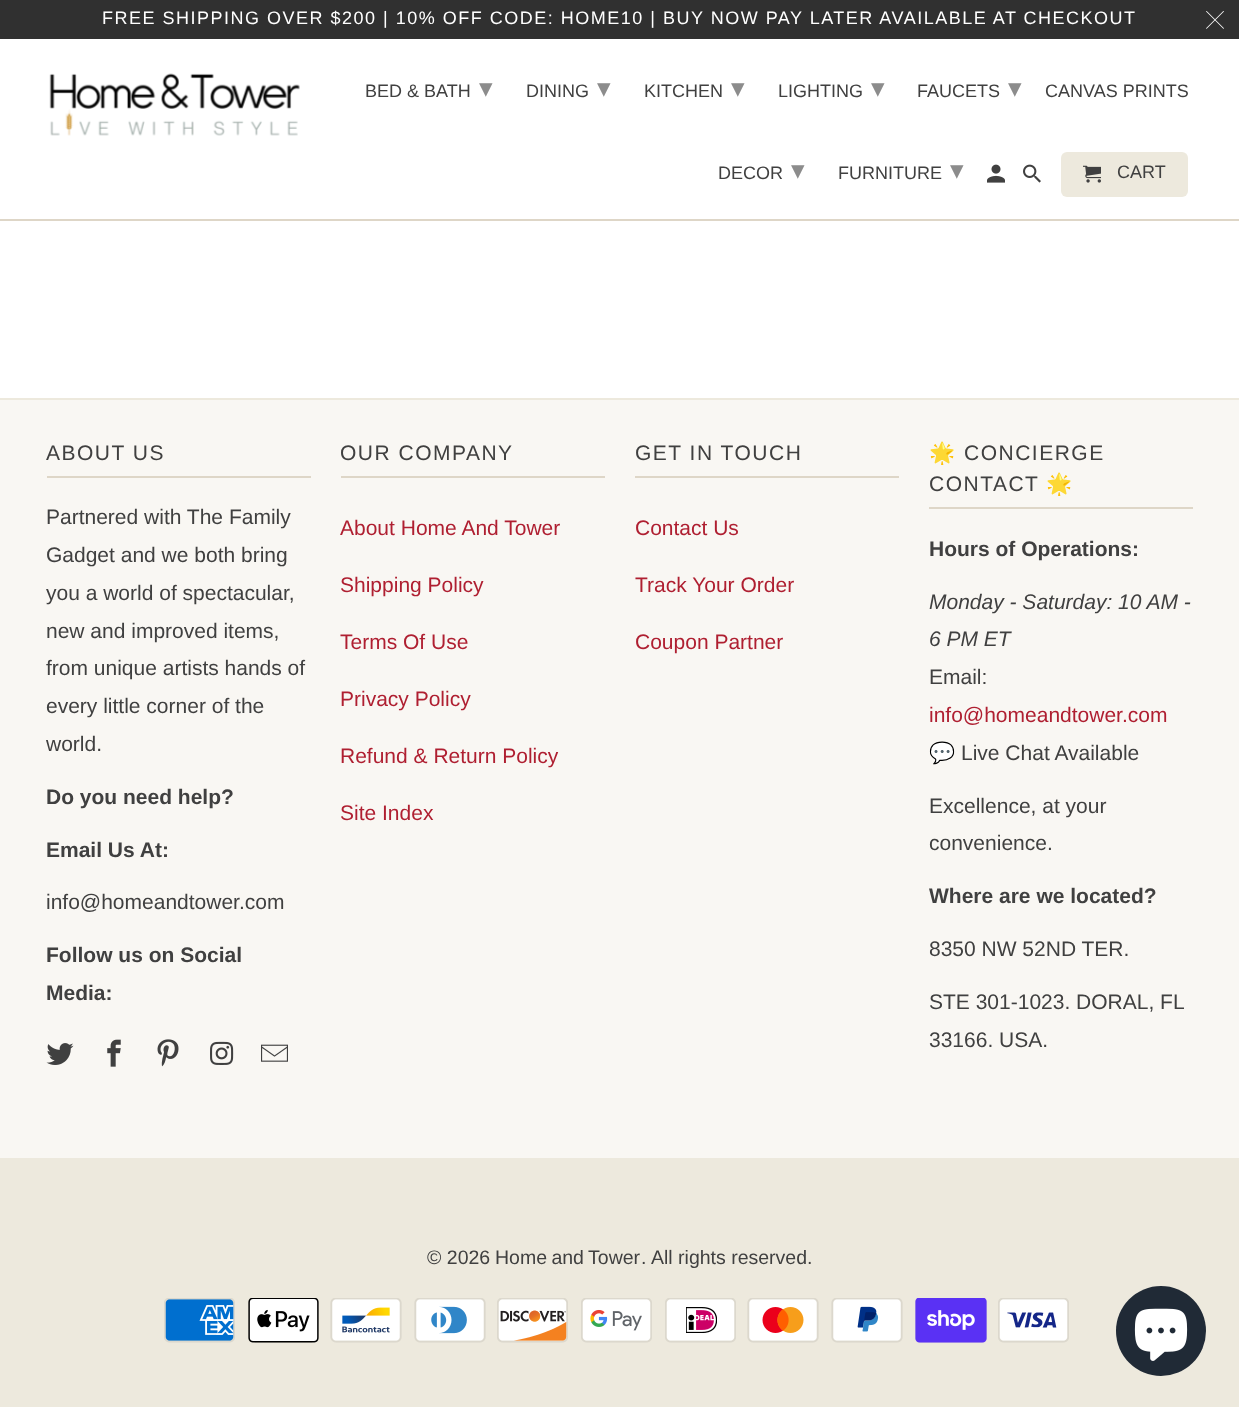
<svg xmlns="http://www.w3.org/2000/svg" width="1239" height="1407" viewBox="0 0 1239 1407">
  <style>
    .t1 { font: 18px Liberation Sans; letter-spacing: 1.5px; fill: #fff; }
    .t2 { font: 18px Liberation Sans; fill: #404040; }
    .t3 { font: 27px DejaVu Sans; fill: #8c8c8c; }
    .t4 { font: 21px Liberation Sans; letter-spacing: 1.5px; fill: #404040; }
    .t5 { font: 21px Liberation Sans; fill: #404040; }
    .t6 { font: bold 21px Liberation Sans; fill: #404040; }
    .t7 { font: 21px Liberation Sans; fill: #af1f31; }
    .t8 { font: 21px Noto Color Emoji; letter-spacing: 1.5px; fill: #404040; }
    .t9 { font: italic 21px Liberation Sans; fill: #404040; }
    .t10 { font: 21px Noto Color Emoji; fill: #404040; }
    .t11 { font: 19.5px Liberation Sans; fill: #404040; }
  </style>
  <rect width="100%" height="100%" fill="#fff"/>
  <rect x="0" y="219" width="1239" height="2" fill="#ded6c7"/>
  <rect x="0" y="0" width="1239" height="39" fill="#303030"/>
  <text x="102" y="24" class="t1">FREE SHIPPING OVER $200 | 10% OFF CODE: HOME10 | BUY NOW PAY LATER AVAILABLE AT CHECKOUT</text>
  <image x="1206" y="11" width="18" height="18" href="images/1.png"/>
  <image x="49" y="73" width="251" height="63" href="images/2.png"/>
  <text x="365" y="97" class="t2">BED &amp; BATH</text>
  <text x="479" y="97" class="t3">▾</text>
  <text x="526" y="97" class="t2">DINING</text>
  <text x="597" y="97" class="t3">▾</text>
  <text x="644" y="97" class="t2">KITCHEN</text>
  <text x="731" y="97" class="t3">▾</text>
  <text x="778" y="97" class="t2">LIGHTING</text>
  <text x="871" y="97" class="t3">▾</text>
  <text x="917" y="97" class="t2">FAUCETS</text>
  <text x="1008" y="97" class="t3">▾</text>
  <text x="1045" y="97" class="t2">CANVAS PRINTS</text>
  <text x="718" y="179" class="t2">DECOR</text>
  <text x="791" y="179" class="t3">▾</text>
  <text x="838" y="179" class="t2">FURNITURE</text>
  <text x="950" y="179" class="t3">▾</text>
  <image x="987" y="164" width="18" height="19" href="images/3.png"/>
  <image x="1023" y="164" width="18" height="19" href="images/4.png"/>
  <rect x="1061" y="152" width="127" height="45" rx="6" fill="#ede9dd"/>
  <image x="1083" y="165" width="18" height="18" href="images/5.png"/>
  <text x="1117" y="178" class="t2">CART</text>
  <rect x="0" y="400" width="1239" height="758" fill="#f9f7f3"/>
  <rect x="0" y="398" width="1239" height="2" fill="#ede9dd"/>
  <rect x="47" y="476" width="264" height="2" fill="#ded6c7"/>
  <text x="46" y="460" class="t4">ABOUT US</text>
  <text x="46" y="524" class="t5">Partnered with The Family</text>
  <text x="46" y="562" class="t5">Gadget and we both bring</text>
  <text x="46" y="600" class="t5">you a world of spectacular,</text>
  <text x="46" y="638" class="t5">new and improved items,</text>
  <text x="46" y="675" class="t5">from unique artists hands of</text>
  <text x="46" y="713" class="t5">every little corner of the</text>
  <text x="46" y="751" class="t5">world.</text>
  <text x="46" y="804" class="t6">Do you need help?</text>
  <text x="46" y="857" class="t6">Email Us At:</text>
  <text x="46" y="909" class="t5">info@homeandtower.com</text>
  <text x="46" y="962" class="t6">Follow us on Social</text>
  <text x="46" y="1000" class="t6">Media:</text>
  <image x="46" y="1043" width="28" height="22" href="images/6.png"/>
  <image x="107" y="1039" width="14" height="28" href="images/7.png"/>
  <image x="157" y="1039" width="22" height="28" href="images/8.png"/>
  <image x="210" y="1041" width="24" height="24" href="images/9.png"/>
  <image x="261" y="1044" width="27" height="18" href="images/10.png"/>
  <rect x="341" y="476" width="264" height="2" fill="#ded6c7"/>
  <text x="340" y="460" class="t4">OUR COMPANY</text>
  <text x="340" y="535" class="t7">About Home And Tower</text>
  <text x="340" y="592" class="t7">Shipping Policy</text>
  <text x="340" y="649" class="t7">Terms Of Use</text>
  <text x="340" y="706" class="t7">Privacy Policy</text>
  <text x="340" y="763" class="t7">Refund &amp; Return Policy</text>
  <text x="340" y="820" class="t7">Site Index</text>
  <rect x="635" y="476" width="264" height="2" fill="#ded6c7"/>
  <text x="635" y="460" class="t4">GET IN TOUCH</text>
  <text x="635" y="535" class="t7">Contact Us</text>
  <text x="635" y="592" class="t7">Track Your Order</text>
  <text x="635" y="649" class="t7">Coupon Partner</text>
  <rect x="929" y="507" width="264" height="2" fill="#ded6c7"/>
  <text x="929" y="460" class="t8">🌟</text>
  <text x="964" y="460" class="t4">CONCIERGE</text>
  <text x="929" y="491" class="t4">CONTACT</text>
  <text x="1046" y="491" class="t8">🌟</text>
  <text x="929" y="556" class="t6">Hours of Operations:</text>
  <text x="929" y="609" class="t9">Monday - Saturday: 10 AM -</text>
  <text x="929" y="646" class="t9">6 PM ET</text>
  <text x="929" y="684" class="t5">Email:</text>
  <text x="929" y="722" class="t7">info@homeandtower.com</text>
  <text x="929" y="760" class="t10">💬</text>
  <text x="961" y="760" class="t5">Live Chat Available</text>
  <text x="929" y="813" class="t5">Excellence, at your</text>
  <text x="929" y="850" class="t5">convenience.</text>
  <text x="929" y="903" class="t6">Where are we located?</text>
  <text x="929" y="956" class="t5">8350 NW 52ND TER.</text>
  <text x="929" y="1009" class="t5">STE 301-1023. DORAL, FL</text>
  <text x="929" y="1047" class="t5">33166. USA.</text>
  <rect x="0" y="1158" width="1239" height="249" fill="#ede9dd"/>
  <text x="427" y="1264" class="t11">© 2026</text>
  <text x="495" y="1264" word-spacing="-1" class="t11">Home and Tower</text>
  <text x="641" y="1264" class="t11">.</text>
  <text x="651" y="1264" class="t11">All rights reserved.</text>
  <image x="164" y="1298" width="71" height="45" href="images/11.png"/>
  <image x="248" y="1298" width="71" height="45" href="images/12.png"/>
  <image x="330" y="1298" width="72" height="45" href="images/13.png"/>
  <image x="414" y="1298" width="72" height="45" href="images/14.png"/>
  <image x="497" y="1298" width="71" height="45" href="images/15.png"/>
  <image x="581" y="1298" width="71" height="45" href="images/16.png"/>
  <image x="665" y="1298" width="71" height="45" href="images/17.png"/>
  <image x="747" y="1298" width="72" height="45" href="images/18.png"/>
  <image x="831" y="1298" width="72" height="45" href="images/19.png"/>
  <image x="915" y="1298" width="72" height="45" href="images/20.png"/>
  <image x="998" y="1298" width="71" height="45" href="images/21.png"/>
  <circle cx="1161" cy="1331" r="45" fill="#202a36"/>
  <image x="1134" y="1308" width="54" height="53" href="images/22.png"/>
</svg>
